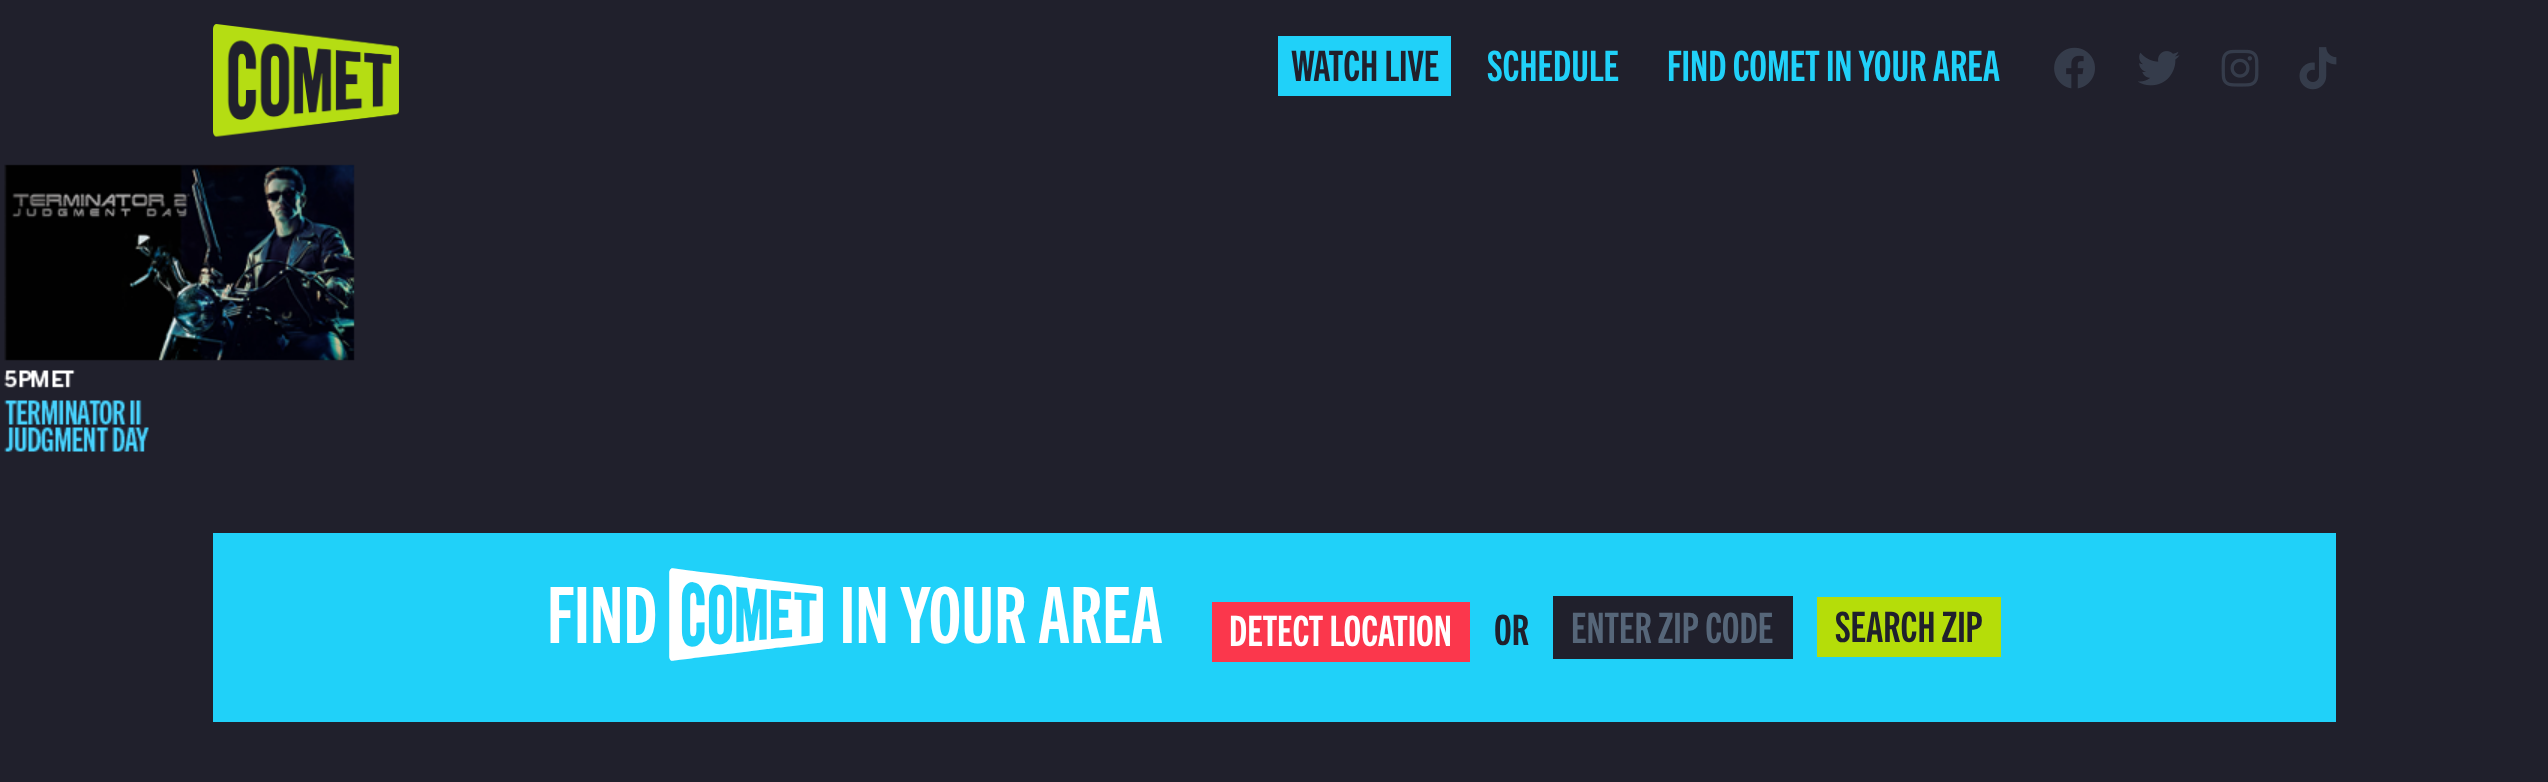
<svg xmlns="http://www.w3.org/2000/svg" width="2548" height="782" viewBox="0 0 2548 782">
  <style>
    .t1 { font: bold 42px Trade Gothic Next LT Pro; fill: #20202c; }
    .t2 { font: bold 42px Trade Gothic Next LT Pro; fill: #20d1f9; }
    .t3 { font: bold 78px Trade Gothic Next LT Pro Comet; fill: #fff; }
    .t4 { font: bold 42px Trade Gothic Next LT Pro; fill: #fff; }
    .t5 { font: bold 42px Trade Gothic Next LT Pro; fill: #566679; }
  </style>
  <rect width="100%" height="100%" fill="#20202c"/>
  <image x="213" y="24" width="186" height="113" href="images/1.png"/>
  <rect x="1278" y="36" width="173" height="60" fill="#20d1f9"/>
  <text x="1291" y="81" class="t1">WATCH LIVE</text>
  <text x="1487" y="81" class="t2">SCHEDULE</text>
  <text x="1667" y="81" class="t2">FIND COMET IN YOUR AREA</text>
  <image x="2054" y="47" width="41" height="42" href="images/2.png"/>
  <image x="2138" y="51" width="42" height="35" href="images/3.png"/>
  <image x="2221" y="49" width="38" height="38" href="images/4.png"/>
  <image x="2299" y="47" width="38" height="43" href="images/5.png"/>
  <image x="4" y="164" width="351" height="288" href="images/6.png"/>
  <rect x="213" y="533" width="2123" height="189" fill="#20d1f9"/>
  <text x="547" y="643" class="t3">FIND COMET IN YOUR AREA</text>
  <rect x="1212" y="602" width="258" height="60" fill="#fb374c"/>
  <text x="1229" y="646" class="t4">DETECT LOCATION</text>
  <text x="1494" y="645" class="t1">OR</text>
  <rect x="1553" y="596" width="240" height="63" fill="#20202c"/>
  <text x="1571" y="643" class="t5">ENTER ZIP CODE</text>
  <rect x="1817" y="597" width="184" height="60" fill="#b5dd09"/>
  <text x="1835" y="642" class="t1">SEARCH ZIP</text>
</svg>
